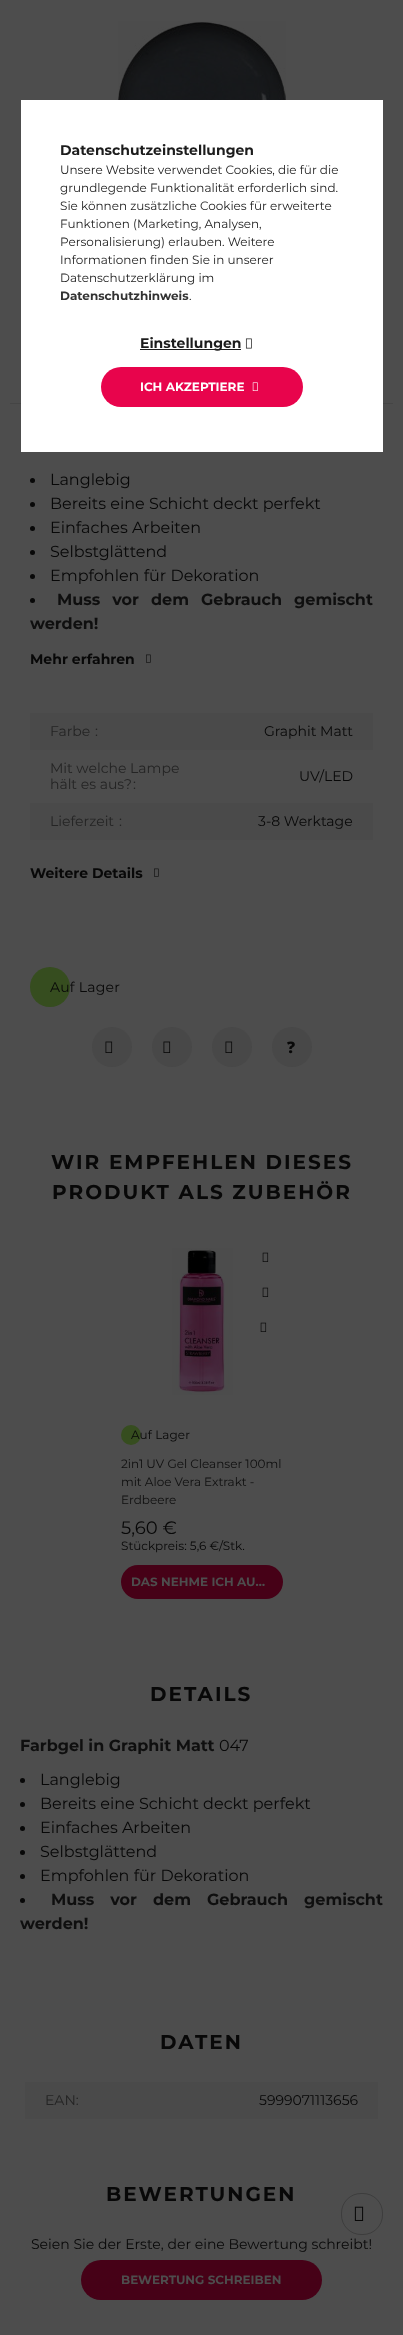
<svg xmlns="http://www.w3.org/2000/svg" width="403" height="2335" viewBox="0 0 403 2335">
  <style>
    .t1 { font: bold 14px Montserrat; fill: #1c1c1c; }
    .t2 { font: 12px Montserrat; fill: #1c1c1c; }
    .t3 { font: bold 12px Montserrat; fill: #333; }
    .t4 { font: bold 12px Montserrat; fill: #fff; }
    .t5 { font: 16px Montserrat; fill: #080808; }
    .t6 { font: bold 16px Montserrat; fill: #0f0f0f; }
    .t7 { font: bold 14px Montserrat; fill: #080808; }
    .t8 { font: 14px Montserrat; fill: #242424; }
    .t9 { font: 14px Montserrat; fill: #080808; }
    .t10 { font: 14px Montserrat; letter-spacing: 0.25px; fill: #080808; }
    .t11 { font: 900 16px Noto Sans; fill: #080808; }
    .t12 { font: bold 20px Montserrat; letter-spacing: 2px; fill: #080808; }
    .t13 { font: 12px Montserrat; letter-spacing: 0.1px; fill: #080808; }
    .t14 { font: 12px Montserrat; fill: #0f0f0f; }
    .t15 { font: 18px Montserrat; fill: #080808; }
    .t16 { font: 12px Montserrat; fill: #080808; }
    .t17 { font: bold 12px Montserrat; fill: #4d4d4d; }
  </style>
  <rect width="100%" height="100%" fill="#4d4d4d"/>
  <rect x="10" y="403" width="383" height="1" fill="#454545"/>
  <rect x="21" y="100" width="362" height="352" fill="#fff"/>
  <text x="60" y="155" class="t1">Datenschutzeinstellungen</text>
  <text x="60" y="174" class="t2">Unsere Website verwendet Cookies, die für die</text>
  <text x="60" y="192" class="t2">grundlegende Funktionalität erforderlich sind.</text>
  <text x="60" y="210" class="t2">Sie können zusätzliche Cookies für erweiterte</text>
  <text x="60" y="228" class="t2">Funktionen (Marketing, Analysen,</text>
  <text x="60" y="246" class="t2">Personalisierung) erlauben. Weitere</text>
  <text x="60" y="264" class="t2">Informationen finden Sie in unserer</text>
  <text x="60" y="282" class="t2">Datenschutzerklärung im</text>
  <text x="60" y="300" class="t3">Datenschutzhinweis</text>
  <text x="189" y="300" class="t2">.</text>
  <rect x="140" y="349" width="101" height="1" fill="#1c1c1c"/>
  <text x="140" y="348" class="t1">Einstellungen</text>
  <image x="245" y="338" width="7" height="11" href="images/1.png"/>
  <rect x="101" y="367" width="202" height="40" rx="20" fill="#e8044c"/>
  <text x="140" y="391" class="t4">ICH AKZEPTIERE</text>
  <image x="252" y="382" width="6" height="9" href="images/2.png"/>
  <image x="118" y="21" width="168" height="79" href="images/3.png"/>
  <circle cx="32.5" cy="480.5" r="2.5" fill="#080808"/>
  <text x="50" y="485" class="t5">Langlebig</text>
  <circle cx="32.5" cy="504.5" r="2.5" fill="#080808"/>
  <text x="50" y="509" class="t5">Bereits eine Schicht deckt perfekt</text>
  <circle cx="32.5" cy="528.5" r="2.5" fill="#080808"/>
  <text x="50" y="533" class="t5">Einfaches Arbeiten</text>
  <circle cx="32.5" cy="552.5" r="2.5" fill="#080808"/>
  <text x="50" y="557" class="t5">Selbstglättend</text>
  <circle cx="32.5" cy="576.5" r="2.5" fill="#080808"/>
  <text x="50" y="581" class="t5">Empfohlen für Dekoration</text>
  <circle cx="32.5" cy="600.5" r="2.5" fill="#080808"/>
  <text x="57" y="605" word-spacing="7.5" class="t6">Muss vor dem Gebrauch gemischt</text>
  <text x="30" y="629" class="t6">werden!</text>
  <text x="30" y="664" class="t7">Mehr erfahren</text>
  <image x="146" y="654" width="5" height="9" href="images/4.png"/>
  <rect x="30" y="713" width="343" height="37" fill="#4a4a4a"/>
  <text x="50" y="736" class="t8">Farbe</text>
  <text x="95" y="736" class="t8">:</text>
  <text x="264" y="736" class="t9">Graphit Matt</text>
  <text x="50" y="773" class="t8">Mit welche Lampe</text>
  <text x="50" y="789" class="t8">hält es aus?</text>
  <text x="133" y="789" class="t8">:</text>
  <text x="299" y="781" class="t9">UV/LED</text>
  <rect x="30" y="803" width="343" height="37" fill="#4a4a4a"/>
  <text x="50" y="826" class="t8">Lieferzeit</text>
  <text x="119" y="826" class="t8">:</text>
  <text x="258" y="826" class="t9">3-8 Werktage</text>
  <text x="30" y="878" class="t7">Weitere Details</text>
  <image x="154" y="868" width="5" height="9" href="images/4.png"/>
  <circle cx="50" cy="987" r="20" fill="#364d1f"/>
  <text x="50" y="992" class="t10">Auf Lager</text>
  <circle cx="112" cy="1047" r="20" fill="#484848"/>
  <image x="105" y="1041" width="8" height="12" href="images/5.png"/>
  <circle cx="172" cy="1047" r="20" fill="#484848"/>
  <image x="163" y="1041" width="8" height="12" href="images/5.png"/>
  <circle cx="232" cy="1047" r="20" fill="#484848"/>
  <image x="225" y="1041" width="8" height="12" href="images/5.png"/>
  <circle cx="292" cy="1047" r="20" fill="#484848"/>
  <text x="287" y="1053" class="t11">?</text>
  <text x="51" y="1169" class="t12">WIR EMPFEHLEN DIESES</text>
  <text x="52" y="1199" class="t12">PRODUKT ALS ZUBEHÖR</text>
  <image x="172" y="1248" width="61" height="147" href="images/6.png"/>
  <image x="262" y="1252" width="7" height="10" href="images/7.png"/>
  <image x="262" y="1287" width="7" height="10" href="images/7.png"/>
  <image x="260" y="1322" width="7" height="10" href="images/7.png"/>
  <circle cx="131" cy="1435" r="10" fill="#364d1f"/>
  <text x="131" y="1439" class="t13">Auf Lager</text>
  <text x="121" y="1468" class="t14">2in1 UV Gel Cleanser 100ml</text>
  <text x="121" y="1486" class="t14">mit Aloe Vera Extrakt -</text>
  <text x="121" y="1504" class="t14">Erdbeere</text>
  <text x="121" y="1534" class="t15">5,60 €</text>
  <text x="121" y="1550" class="t16">Stückpreis: 5,6 €/Stk.</text>
  <rect x="121" y="1565" width="162" height="34" rx="17" fill="#460117"/>
  <text x="131" y="1586" class="t17">DAS NEHME ICH AU…</text>
  <text x="150" y="1701" class="t12">DETAILS</text>
  <text x="20" y="1751" class="t6">Farbgel in Graphit Matt</text>
  <text x="219" y="1751" class="t5">047</text>
  <circle cx="22.5" cy="1780.5" r="2.5" fill="#080808"/>
  <text x="40" y="1785" class="t5">Langlebig</text>
  <circle cx="22.5" cy="1804.5" r="2.5" fill="#080808"/>
  <text x="40" y="1809" class="t5">Bereits eine Schicht deckt perfekt</text>
  <circle cx="22.5" cy="1828.5" r="2.5" fill="#080808"/>
  <text x="40" y="1833" class="t5">Einfaches Arbeiten</text>
  <circle cx="22.5" cy="1852.5" r="2.5" fill="#080808"/>
  <text x="40" y="1857" class="t5">Selbstglättend</text>
  <circle cx="22.5" cy="1876.5" r="2.5" fill="#080808"/>
  <text x="40" y="1881" class="t5">Empfohlen für Dekoration</text>
  <circle cx="22.5" cy="1900.5" r="2.5" fill="#080808"/>
  <text x="51" y="1905" word-spacing="11.5" class="t6">Muss vor dem Gebrauch gemischt</text>
  <text x="20" y="1929" class="t6">werden!</text>
  <text x="160" y="2049" class="t12">DATEN</text>
  <rect x="25" y="2082" width="353" height="37" fill="#4a4a4a"/>
  <text x="45" y="2105" class="t8">EAN:</text>
  <text x="259" y="2105" class="t9">5999071113656</text>
  <text x="106" y="2201" class="t12">BEWERTUNGEN</text>
  <text x="31" y="2249" class="t9">Seien Sie der Erste, der eine Bewertung schreibt!</text>
  <rect x="81" y="2260" width="241" height="40" rx="20" fill="#460117"/>
  <text x="121" y="2284" class="t17">BEWERTUNG SCHREIBEN</text>
  <rect x="341.5" y="2193.5" width="41" height="41" rx="19.5" fill="none" stroke="#3d3d3d"/>
  <image x="354" y="2206" width="10" height="15" href="images/8.png"/>
</svg>
